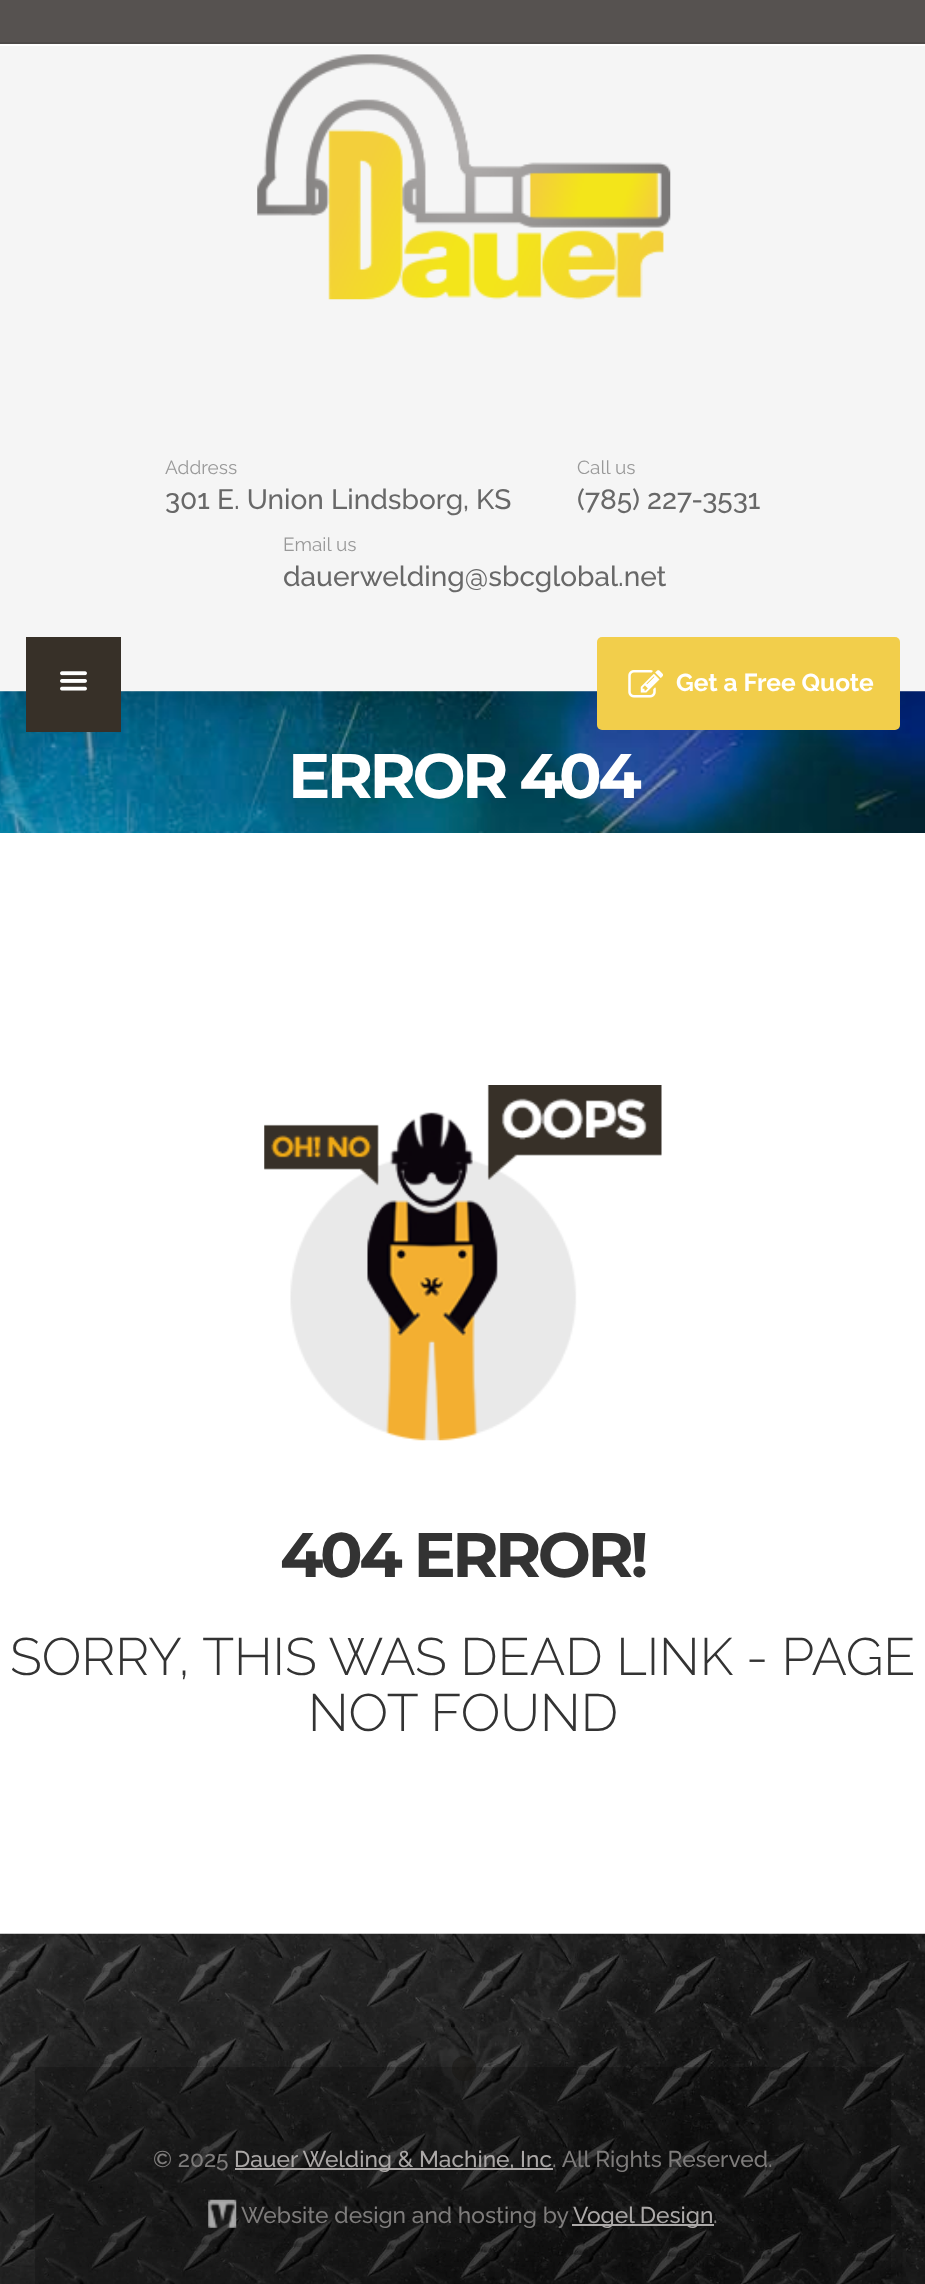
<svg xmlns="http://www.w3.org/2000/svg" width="925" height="2284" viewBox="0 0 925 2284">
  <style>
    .t1 { font: 19px Raleway; fill: #999; }
    .t2 { font: 500 28px Raleway; fill: #686868; }
    .t3 { font: bold 24.5px Raleway; fill: #fff; }
    .t4 { font: bold 63px Montserrat; letter-spacing: -3.5px; fill: #fff; }
    .t5 { font: bold 63px Montserrat; letter-spacing: -3.5px; fill: #333; }
    .t6 { font: 300 52.5px Raleway; fill: #333; }
    .t7 { font: 500 22.75px Raleway; fill: #7e7c7b; }
    .t8 { font: 500 22.75px Raleway; fill: #aba8a7; }
  </style>
  <rect width="100%" height="100%" fill="#fff"/>
  <image x="0" y="691" width="925" height="142" href="images/4.png"/>
  <rect x="0" y="53" width="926" height="647" fill="#00000033" filter="blur(21px)"/>
  <rect x="0" y="0" width="925" height="42" fill="#565250"/>
  <rect x="0" y="42" width="925" height="2" fill="#4d4a48"/>
  <rect x="0" y="46" width="925" height="645" fill="#f5f5f5"/>
  <rect x="0" y="44" width="925" height="2" fill="#fff"/>
  <image x="257" y="54" width="414" height="246" href="images/1.png"/>
  <text x="165" y="474" class="t1">Address</text>
  <text x="165" y="509" class="t2">301 E. Union Lindsborg, KS</text>
  <text x="577" y="474" class="t1">Call us</text>
  <text x="577" y="509" class="t2">(785) 227-3531</text>
  <text x="283" y="551" class="t1">Email us</text>
  <text x="283" y="586" class="t2">dauerwelding@sbcglobal.net</text>
  <rect x="26" y="637" width="95" height="95" fill="#373028"/>
  <image x="60" y="671" width="27" height="20" href="images/2.png"/>
  <rect x="597" y="637" width="303" height="93" rx="5" fill="#f2ce4b"/>
  <image x="628" y="670" width="35" height="28" href="images/3.png"/>
  <text x="676" y="691" class="t3">Get a Free Quote</text>
  <text x="288" y="798" class="t4">ERROR 404</text>
  <image x="264" y="1085" width="398" height="356" href="images/5.png"/>
  <text x="280" y="1577" class="t5">404 ERROR!</text>
  <text x="10" y="1675" class="t6">SORRY, THIS WAS DEAD LINK - PAGE</text>
  <text x="308" y="1731" class="t6">NOT FOUND</text>
  <image x="0" y="1933" width="925" height="351" href="images/6.png"/>
  <rect x="35" y="2067" width="856" height="217" fill="#00000033"/>
  <rect x="452" y="2056" width="24" height="25" rx="12" fill="#18151280"/>
  <text x="153" y="2167" class="t7">© 2025</text>
  <rect x="235" y="2168" width="318" height="2" fill="#aba8a7"/>
  <text x="234" y="2167" class="t8">Dauer Welding &amp; Machine, Inc</text>
  <text x="552" y="2167" class="t7">. All Rights Reserved.</text>
  <image x="208" y="2199" width="29" height="29" href="images/7.png"/>
  <text x="241" y="2223" class="t7">Website design and hosting by</text>
  <rect x="572" y="2224" width="142" height="2" fill="#aba8a7"/>
  <text x="573" y="2223" class="t8">Vogel Design</text>
  <text x="713" y="2223" class="t7">.</text>
</svg>
